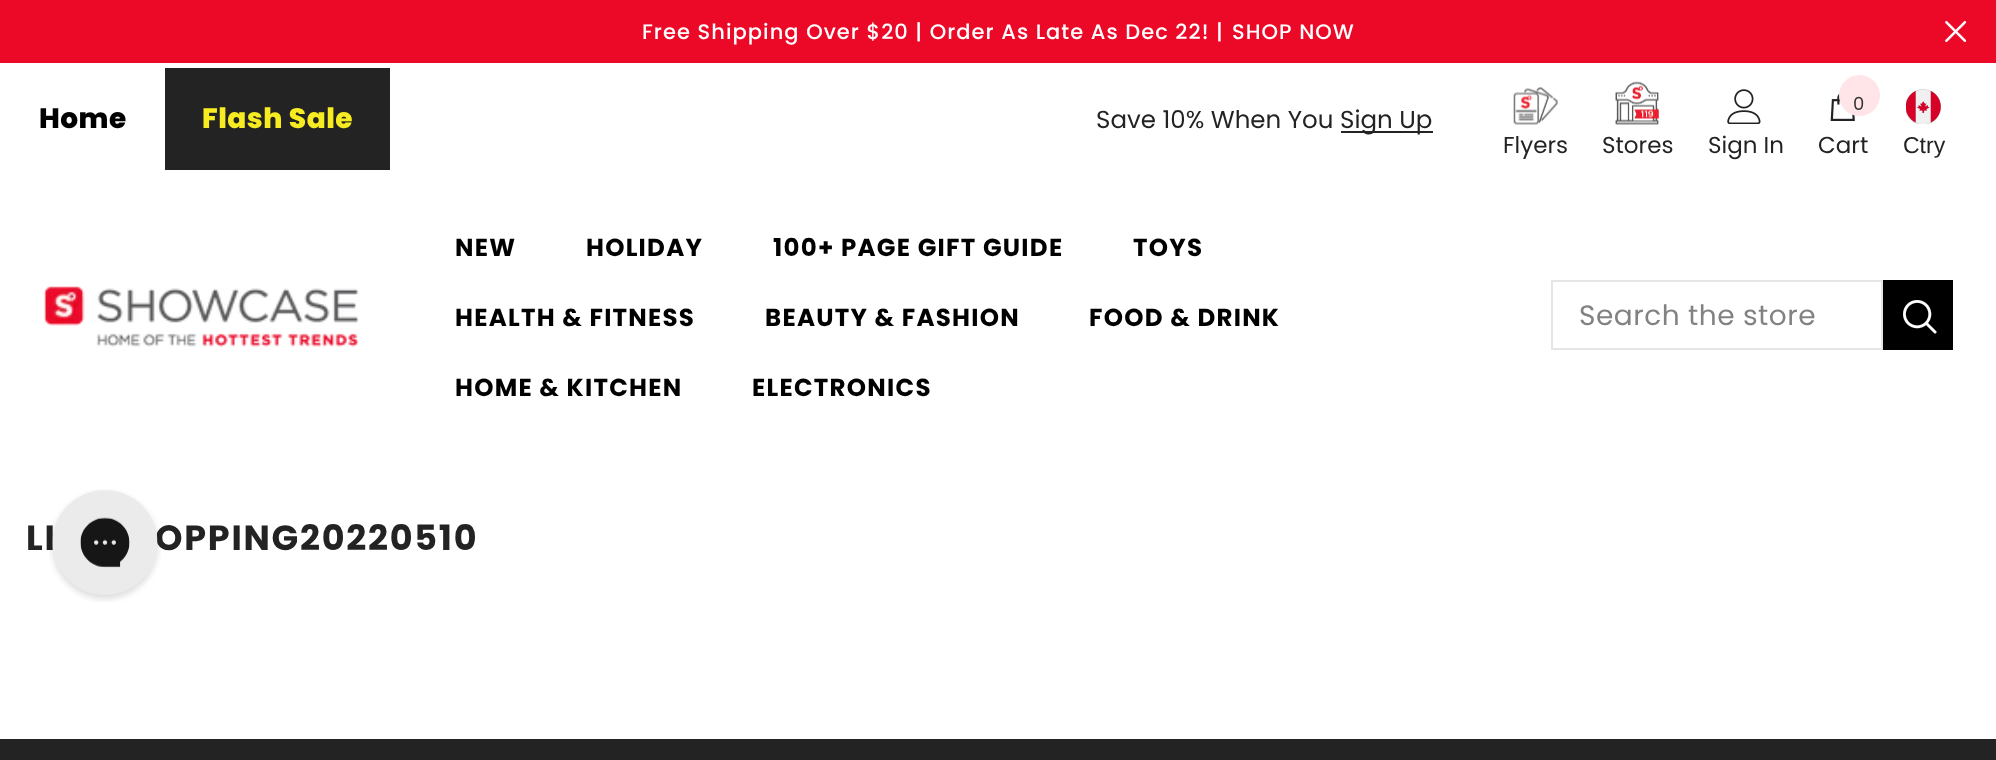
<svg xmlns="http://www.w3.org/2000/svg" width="1996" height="760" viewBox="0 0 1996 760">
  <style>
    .t1 { font: 500 21px Poppins; letter-spacing: 1.05px; fill: #fff; }
    .t2 { font: 800 28px Poppins; letter-spacing: 0.5px; fill: #000; }
    .t3 { font: 800 28px Poppins; letter-spacing: 0.5px; fill: #f7ec21; }
    .t4 { font: 24.5px Poppins; fill: #232323; }
    .t5 { font: 23px Poppins; fill: #232323; }
    .t6 { font: 18px Poppins; fill: #323232; }
    .t7 { font: 23px Liberation Sans; fill: #232323; }
    .t8 { font: bold 24.5px Poppins; letter-spacing: 1.25px; fill: #000; }
    .t9 { font: 28px Poppins; letter-spacing: 0.5px; fill: #828282; }
    .t10 { font: bold 35px Poppins; letter-spacing: 1.75px; fill: #232323; }
  </style>
  <rect width="100%" height="100%" fill="#fff"/>
  <rect x="0" y="0" width="1996" height="63" fill="#ec0928"/>
  <text x="642" y="39" class="t1">Free Shipping Over $20 | Order As Late As Dec 22! |</text>
  <text x="1232" y="39" class="t1">SHOP NOW</text>
  <image x="1945" y="21" width="22" height="21" href="images/1.png"/>
  <text x="39" y="128" class="t2">Home</text>
  <rect x="165" y="68" width="225" height="102" fill="#232323"/>
  <text x="202" y="128" class="t3">Flash Sale</text>
  <text x="1096" y="128" class="t4">Save 10% When You</text>
  <rect x="1341" y="131" width="92" height="2" fill="#232323"/>
  <text x="1340" y="128" class="t4">Sign Up</text>
  <image x="1513" y="87" width="45" height="38" href="images/2.png"/>
  <text x="1503" y="153" class="t5">Flyers</text>
  <image x="1615" y="81" width="44" height="44" href="images/3.png"/>
  <text x="1602" y="153" class="t5">Stores</text>
  <image x="1727" y="89" width="34" height="35" href="images/4.png"/>
  <text x="1708" y="153" class="t5">Sign In</text>
  <image x="1830" y="93" width="25" height="28" href="images/5.png"/>
  <circle cx="1859.5" cy="95.5" r="20.5" fill="#ffe5e8"/>
  <text x="1853" y="110" class="t6">0</text>
  <text x="1818" y="153" class="t5">Cart</text>
  <image x="1906" y="89" width="35" height="35" href="images/6.png"/>
  <text x="1903" y="153" class="t7">Ctry</text>
  <image x="43" y="286" width="316" height="61" href="images/7.png"/>
  <text x="455" y="256" class="t8">NEW</text>
  <text x="586" y="256" class="t8">HOLIDAY</text>
  <text x="773" y="256" class="t8">100+ PAGE GIFT GUIDE</text>
  <text x="1133" y="256" class="t8">TOYS</text>
  <text x="455" y="326" class="t8">HEALTH &amp; FITNESS</text>
  <text x="765" y="326" class="t8">BEAUTY &amp; FASHION</text>
  <text x="1089" y="326" class="t8">FOOD &amp; DRINK</text>
  <text x="455" y="396" class="t8">HOME &amp; KITCHEN</text>
  <text x="752" y="396" class="t8">ELECTRONICS</text>
  <rect x="1552" y="281" width="330" height="68" fill="none" stroke="#e5e5e5" stroke-width="2"/>
  <text x="1579" y="325" class="t9">Search the store</text>
  <rect x="1883" y="280" width="70" height="70" fill="#000"/>
  <image x="1903" y="300" width="34" height="34" href="images/8.png"/>
  <text x="26" y="550" class="t10">LI</text>
  <text x="155" y="550" class="t10">OPPING20220510</text>
  <rect x="0" y="739" width="1996" height="21" fill="#232323"/>
  <image x="49" y="489" width="112" height="113" href="images/9.png"/>
</svg>
